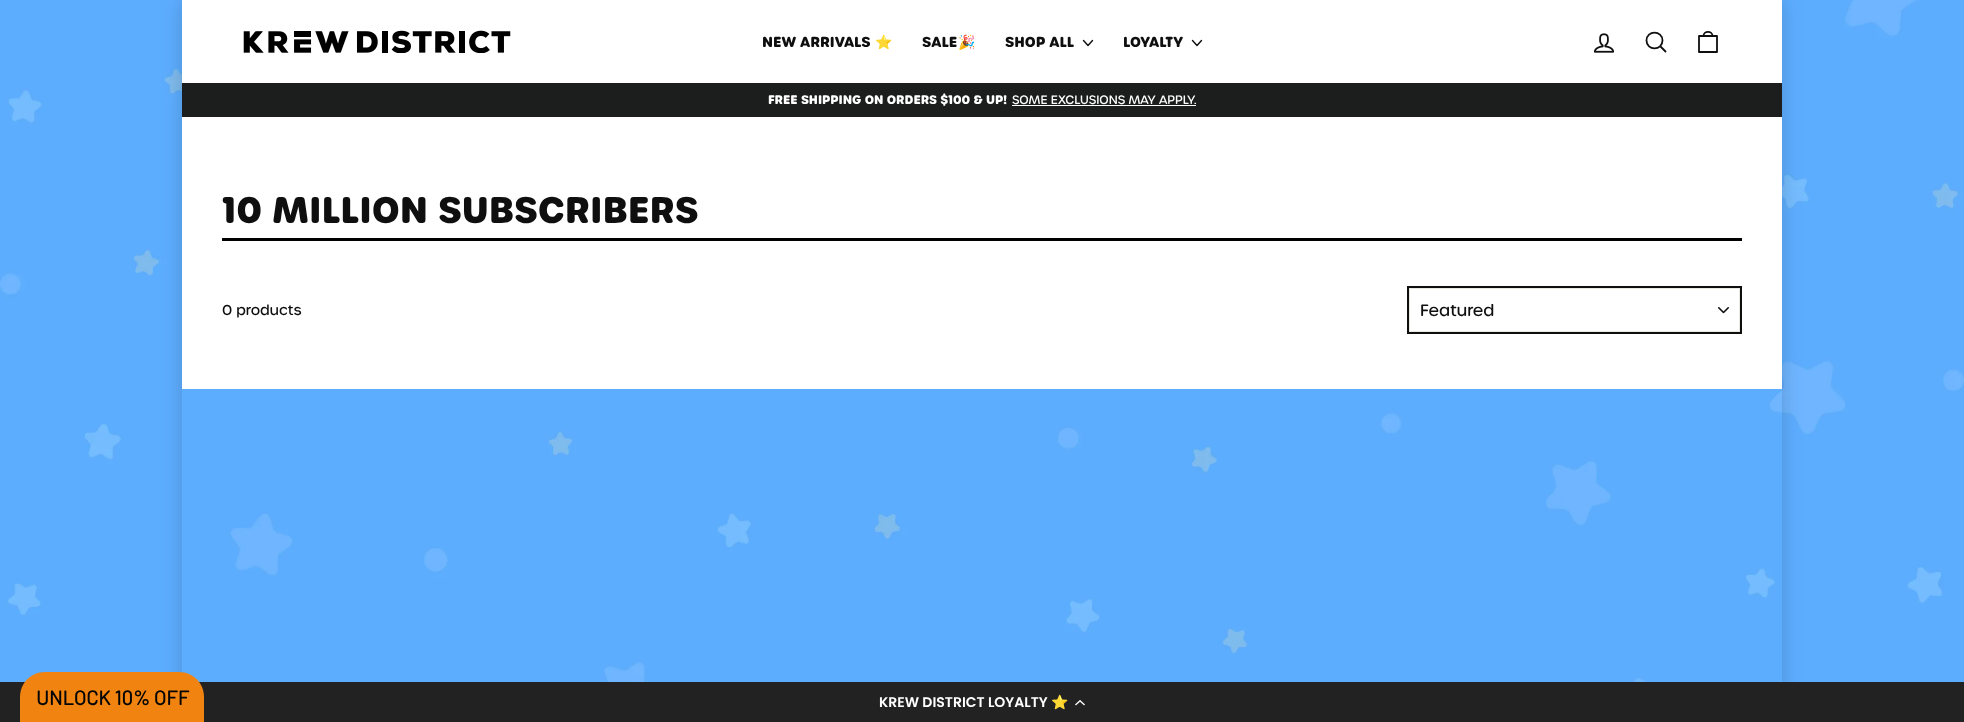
<svg xmlns="http://www.w3.org/2000/svg" width="1964" height="722" viewBox="0 0 1964 722">
  <style>
    .t1 { font: bold 14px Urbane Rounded; fill: #0f0f0f; }
    .t2 { font: bold 14px Noto Color Emoji; fill: #0f0f0f; }
    .t3 { font: bold 12px Urbane Rounded; fill: #fff; }
    .t4 { font: 500 11.9px Urbane Rounded; fill: #fff; }
    .t5 { font: bold 36px Urbane Rounded; fill: #0f0f0f; }
    .t6 { font: 500 14px Urbane Rounded; fill: #0f0f0f; }
    .t7 { font: 500 16px Urbane Rounded; fill: #0f0f0f; }
    .t8 { font: bold 20px Barlow; fill: #050505; }
    .t9 { font: 600 14px Poppins; fill: #fff; }
    .t10 { font: bold 14px Noto Color Emoji; fill: #fff; }
  </style>
  <defs>
    <clipPath id="clip1"><path d="M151 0H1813V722H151ZM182 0H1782V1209H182Z" clip-rule="evenodd"/></clipPath>
  </defs>
  <rect width="100%" height="100%" fill="#fff"/>
  <image x="0" y="0" width="1964" height="682" href="images/1.png"/>
  <g clip-path="url(#clip1)">
    <rect x="182" y="0" width="1600" height="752" fill="#0000002b" filter="blur(10px)"/>
  </g>
  <rect x="182" y="0" width="1600" height="83" fill="#fff"/>
  <image x="243" y="30" width="268" height="23" href="images/2.png"/>
  <text x="762" y="47" class="t1">NEW ARRIVALS</text>
  <text x="875" y="47" class="t2">⭐</text>
  <text x="922" y="47" class="t1">SALE</text>
  <text x="958" y="47" class="t2">🎉</text>
  <text x="1005" y="47" class="t1">SHOP ALL</text>
  <path d="M1083.5 40.5L1088 45.5L1092.5 40.5" fill="none" stroke="#0f0f0f" stroke-width="1.4" stroke-linecap="round" stroke-linejoin="round"/>
  <text x="1123" y="47" class="t1">LOYALTY</text>
  <path d="M1192.5 40.5L1197 45.5L1201.5 40.5" fill="none" stroke="#0f0f0f" stroke-width="1.4" stroke-linecap="round" stroke-linejoin="round"/>
  <image x="1593" y="33" width="22" height="20" href="images/3.png"/>
  <path d="M1662.5 40.5C1662.5 51 1646.5 51 1646.5 40.5C1646.5 30 1662.5 30 1662.5 40.5ZM1665.5 51.5L1660.5 46.5" fill="none" stroke="#0f0f0f" stroke-width="1.8" stroke-linecap="round" stroke-linejoin="round"/>
  <path d="M1699 36H1717V52H1699ZM1703.5 36C1703.5 30.5 1712.5 30.5 1712.5 36" fill="none" stroke="#0f0f0f" stroke-width="1.8" stroke-linecap="round" stroke-linejoin="round"/>
  <rect x="182" y="83" width="1600" height="34" fill="#1c1d1d"/>
  <text x="768" y="104" class="t3">FREE SHIPPING ON ORDERS $100 &amp; UP!</text>
  <text x="1012" y="104" class="t4">SOME EXCLUSIONS MAY APPLY.</text>
  <rect x="1012" y="105" width="184" height="1" fill="#fff"/>
  <rect x="182" y="117" width="1600" height="272" fill="#fff"/>
  <rect x="222" y="238" width="1520" height="3" fill="#000"/>
  <text x="222" y="223" class="t5">10 MILLION SUBSCRIBERS</text>
  <text x="222" y="315" class="t6">0 products</text>
  <rect x="1408" y="287" width="333" height="46" fill="none" stroke="#0f0f0f" stroke-width="2"/>
  <image x="1718" y="307" width="11" height="7" href="images/4.png"/>
  <rect x="1409.5" y="288.5" width="330" height="43" fill="none" stroke="#e8e8e1"/>
  <text x="1420" y="316" class="t7">Featured</text>
  <rect x="0" y="682" width="1964" height="40" fill="#222"/>
  <path d="M45 672H179C193 672 204 683 204 697V722H20V697C20 683 31 672 45 672Z" fill="#f18410"/>
  <text x="36" y="705" class="t8">UNLOCK 10% OFF</text>
  <text x="879" y="707" class="t9">KREW DISTRICT LOYALTY</text>
  <text x="1051" y="707" class="t10">⭐</text>
  <image x="1075" y="700" width="10" height="6" href="images/5.png"/>
</svg>
